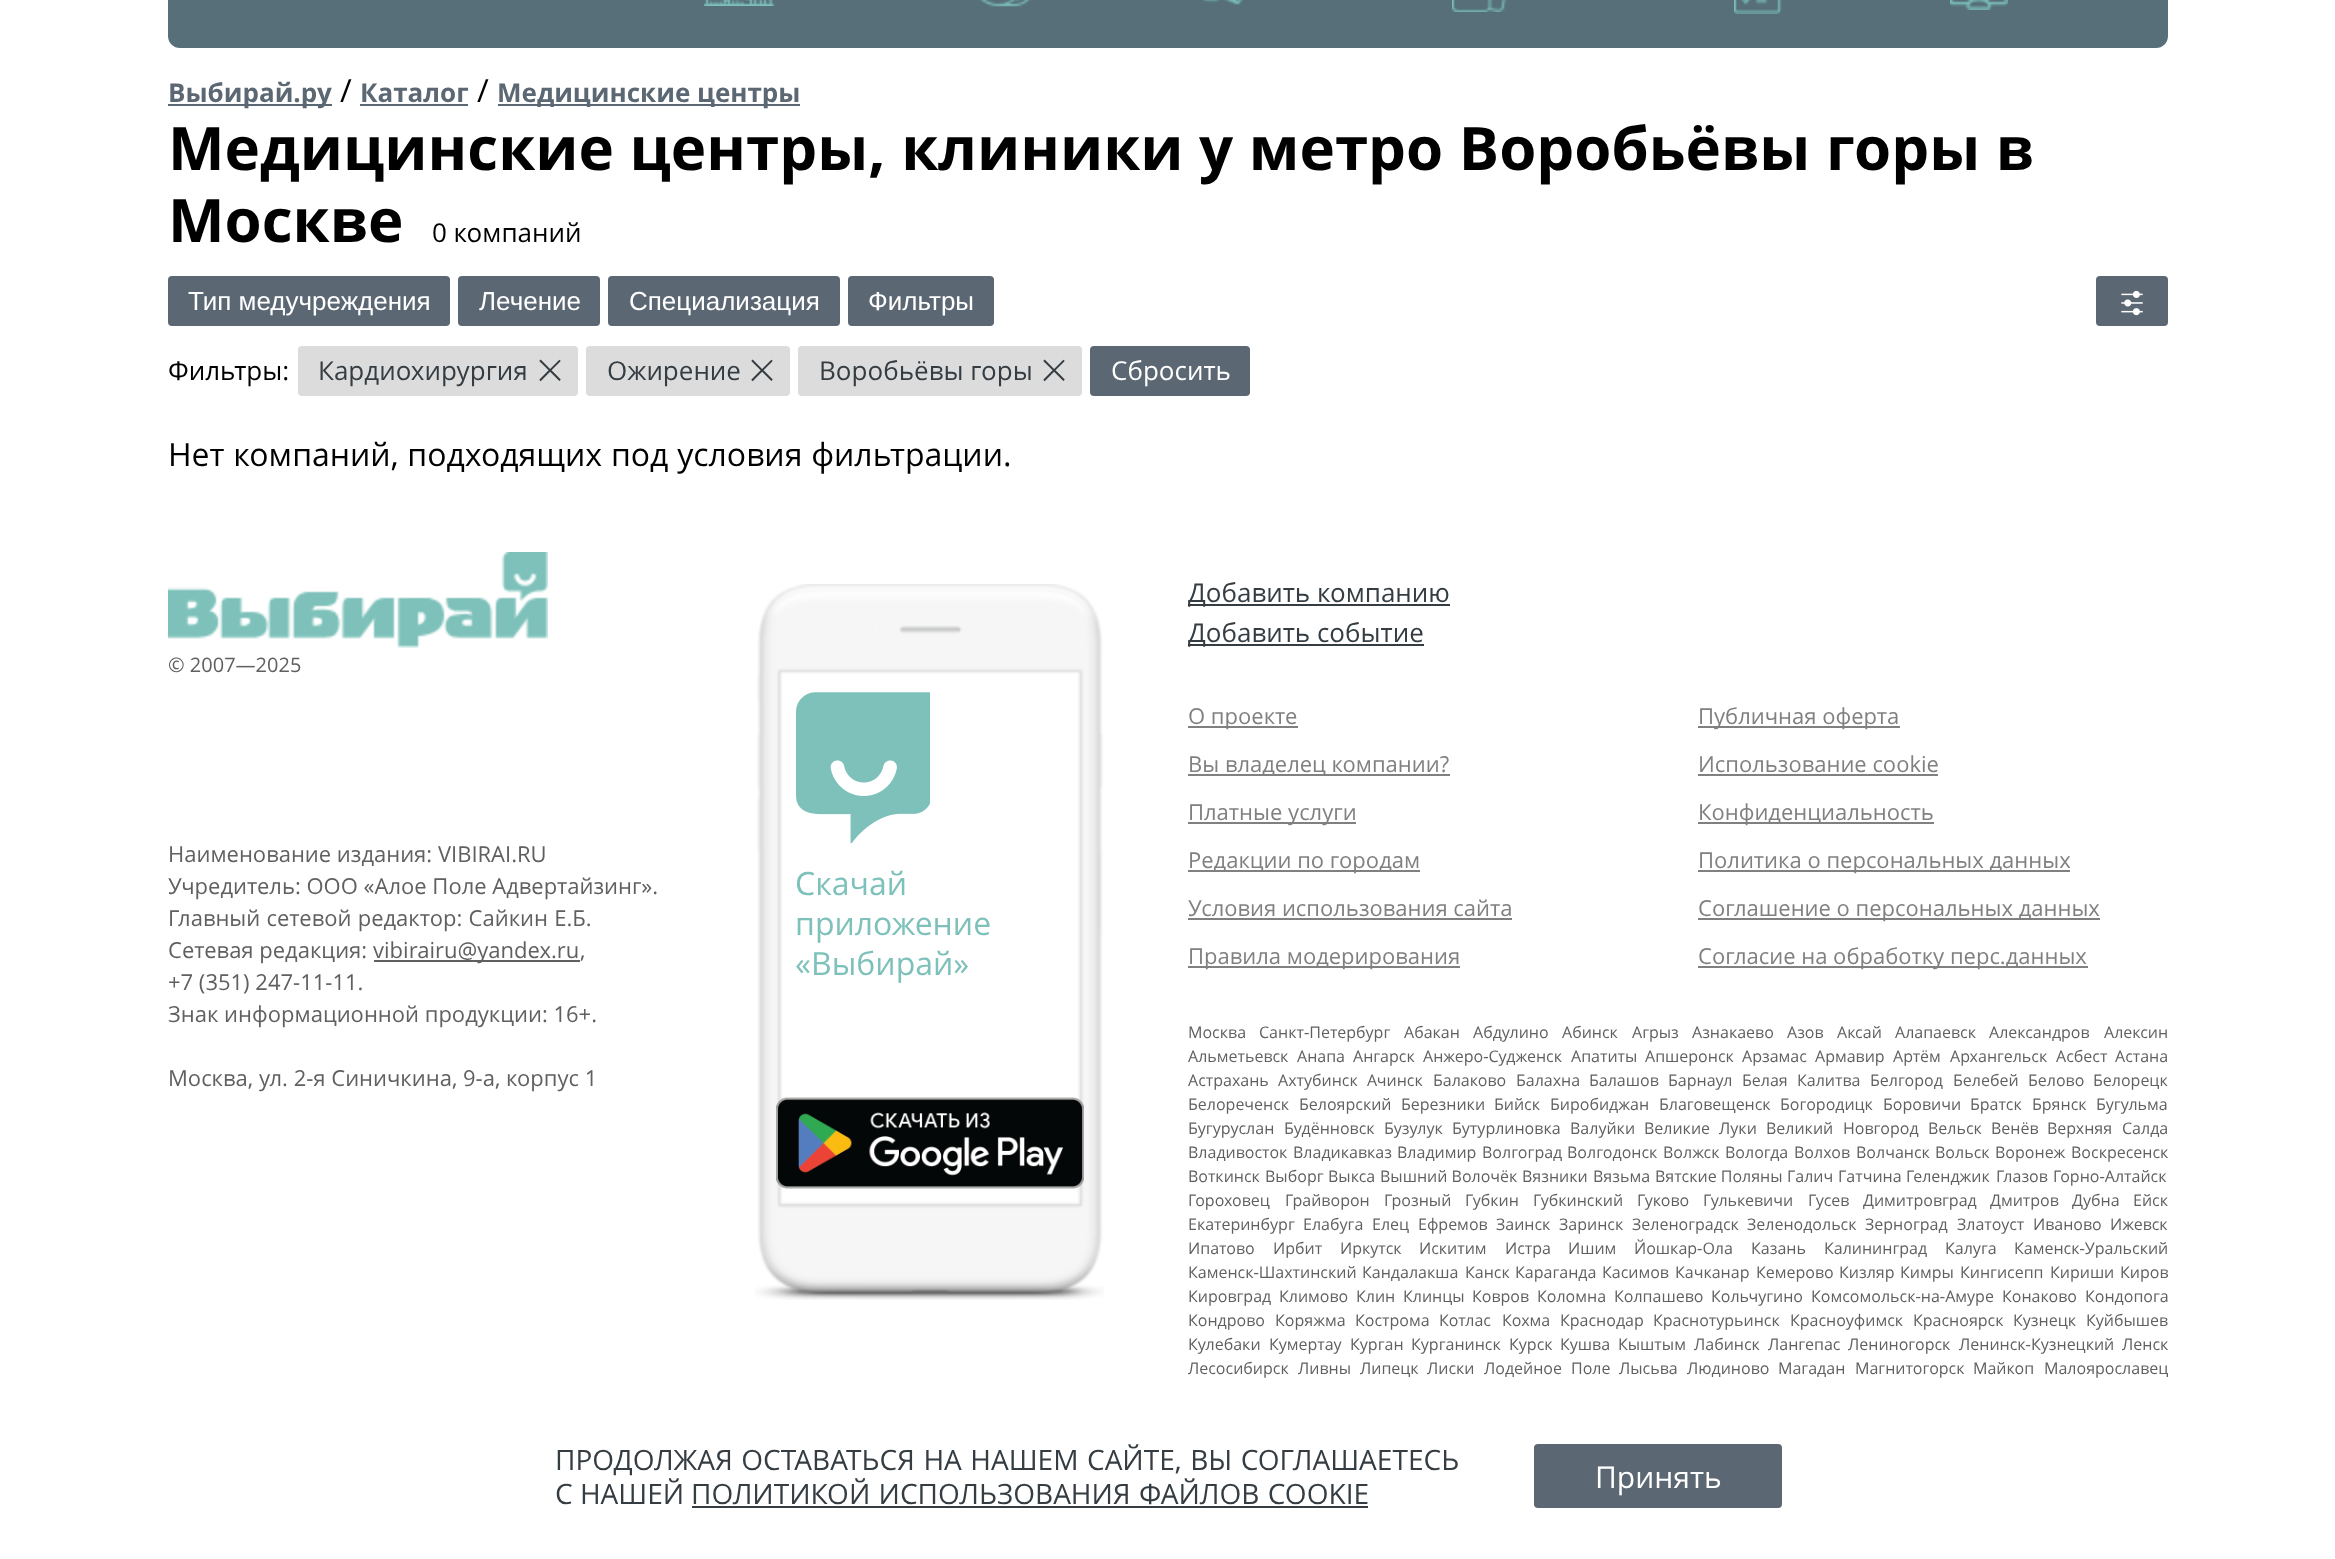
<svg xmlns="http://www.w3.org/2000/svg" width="2335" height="1559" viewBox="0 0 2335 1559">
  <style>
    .t1 { font: bold 26px Open Sans; fill: #5b6772; }
    .t2 { font: 32px Open Sans; fill: #000; }
    .t3 { font: bold 60px Open Sans; fill: #000; }
    .t4 { font: 26px Open Sans; fill: #000; }
    .t5 { font: 26px Liberation Sans; fill: #fff; }
    .t6 { font: 26px Open Sans; fill: #353d42; }
    .t7 { font: 34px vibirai; fill: #353d42; }
    .t8 { font: 26px Open Sans; fill: #fff; }
    .t9 { font: 20px Open Sans; fill: #606060; }
    .t10 { font: 22px Open Sans; fill: #606060; }
    .t11 { font: 32px Open Sans; fill: #7dc1ba; }
    .t12 { font: 22px Open Sans; fill: #808080; }
    .t13 { font: 16px Open Sans; fill: #606060; }
    .t14 { font: 28px Open Sans; fill: #353d42; }
    .t15 { font: 30px Open Sans; fill: #fff; }
  </style>
  <rect width="100%" height="100%" fill="#fff"/>
  <rect x="168" y="-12" width="2000" height="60" rx="12" fill="#566f79"/>
  <image x="704" y="0" width="70" height="6" href="images/1.png"/>
  <image x="979" y="0" width="57" height="7" href="images/2.png"/>
  <image x="1202" y="0" width="41" height="5" href="images/3.png"/>
  <image x="1452" y="0" width="55" height="12" href="images/4.png"/>
  <image x="1734" y="0" width="48" height="14" href="images/5.png"/>
  <image x="1950" y="0" width="58" height="10" href="images/6.png"/>
  <rect x="168" y="104" width="164" height="2" fill="#5b6772"/>
  <text x="168" y="102" class="t1">Выбирай.ру</text>
  <text x="340" y="102" class="t2">/</text>
  <text x="360" y="102" class="t1">Каталог</text>
  <rect x="360" y="104" width="108" height="2" fill="#5b6772"/>
  <text x="477" y="102" class="t2">/</text>
  <rect x="498" y="104" width="302" height="2" fill="#5b6772"/>
  <text x="497" y="102" class="t1">Медицинские центры</text>
  <text x="168" y="170" class="t3">Медицинские центры, клиники у метро Воробьёвы горы в</text>
  <text x="168" y="242" class="t3">Москве</text>
  <text x="432" y="242" class="t4">0 компаний</text>
  <rect x="168" y="276" width="282" height="50" rx="4" fill="#5b6772"/>
  <text x="188" y="310" class="t5">Тип медучреждения</text>
  <rect x="458" y="276" width="142" height="50" rx="4" fill="#5b6772"/>
  <text x="479" y="310" class="t5">Лечение</text>
  <rect x="608" y="276" width="232" height="50" rx="4" fill="#5b6772"/>
  <text x="629" y="310" class="t5">Специализация</text>
  <rect x="848" y="276" width="146" height="50" rx="4" fill="#5b6772"/>
  <text x="868" y="310" class="t5">Фильтры</text>
  <rect x="2096" y="276" width="72" height="50" rx="4" fill="#5b6772"/>
  <image x="2121" y="290" width="22" height="26" href="images/7.png"/>
  <text x="168" y="380" class="t4">Фильтры:</text>
  <rect x="298" y="346" width="280" height="50" rx="4" fill="#dcdcdc"/>
  <text x="318" y="380" class="t6">Кардиохирургия</text>
  <text x="533" y="382" class="t7">×</text>
  <rect x="586" y="346" width="204" height="50" rx="4" fill="#dcdcdc"/>
  <text x="607" y="380" class="t6">Ожирение</text>
  <text x="745" y="382" class="t7">×</text>
  <rect x="798" y="346" width="284" height="50" rx="4" fill="#dcdcdc"/>
  <text x="819" y="380" class="t6">Воробьёвы горы</text>
  <text x="1037" y="382" class="t7">×</text>
  <rect x="1090" y="346" width="160" height="50" rx="4" fill="#5b6772"/>
  <text x="1111" y="380" class="t8">Сбросить</text>
  <text x="168" y="466" word-spacing="0.5" class="t2">Нет компаний, подходящих под условия фильтрации.</text>
  <image x="168" y="552" width="380" height="96" href="images/8.png"/>
  <text x="168" y="672" class="t9">© 2007—2025</text>
  <text x="168" y="862" class="t10">Наименование издания: VIBIRAI.RU</text>
  <text x="168" y="894" class="t10">Учредитель: ООО «Алое Поле Адвертайзинг».</text>
  <text x="168" y="926" word-spacing="0.5" class="t10">Главный сетевой редактор: Сайкин Е.Б.</text>
  <text x="168" y="958" class="t10">Сетевая редакция:</text>
  <rect x="374" y="960" width="206" height="2" fill="#606060"/>
  <text x="373" y="958" class="t10">vibirairu@yandex.ru</text>
  <text x="580" y="958" class="t10">,</text>
  <text x="168" y="990" class="t10">+7 (351) 247-11-11.</text>
  <text x="168" y="1022" class="t10">Знак информационной продукции: 16+.</text>
  <text x="168" y="1086" class="t10">Москва, ул. 2-я Синичкина, 9-а, корпус 1</text>
  <image x="755" y="584" width="349" height="716" href="images/9.png"/>
  <image x="796" y="692" width="134" height="152" href="images/10.png"/>
  <text x="795" y="895" class="t11">Скачай</text>
  <text x="795" y="935" class="t11">приложение</text>
  <text x="795" y="975" class="t11">«Выбирай»</text>
  <image x="776" y="1097" width="308" height="92" href="images/11.png"/>
  <rect x="1188" y="604" width="262" height="2" fill="#353d42"/>
  <text x="1188" y="602" class="t6">Добавить компанию</text>
  <rect x="1188" y="644" width="236" height="2" fill="#353d42"/>
  <text x="1188" y="642" class="t6">Добавить событие</text>
  <rect x="1188" y="726" width="110" height="2" fill="#808080"/>
  <text x="1188" y="724" class="t12">О проекте</text>
  <rect x="1188" y="774" width="262" height="2" fill="#808080"/>
  <text x="1188" y="772" class="t12">Вы владелец компании?</text>
  <rect x="1188" y="822" width="168" height="2" fill="#808080"/>
  <text x="1188" y="820" class="t12">Платные услуги</text>
  <rect x="1188" y="870" width="232" height="2" fill="#808080"/>
  <text x="1188" y="868" class="t12">Редакции по городам</text>
  <text x="1188" y="916" class="t12">Условия использования сайта</text>
  <rect x="1188" y="918" width="324" height="2" fill="#808080"/>
  <rect x="1188" y="966" width="272" height="2" fill="#808080"/>
  <text x="1188" y="964" class="t12">Правила модерирования</text>
  <rect x="1698" y="726" width="202" height="2" fill="#808080"/>
  <text x="1698" y="724" class="t12">Публичная оферта</text>
  <text x="1698" y="772" class="t12">Использование cookie</text>
  <rect x="1698" y="774" width="240" height="2" fill="#808080"/>
  <rect x="1698" y="822" width="236" height="2" fill="#808080"/>
  <text x="1698" y="820" class="t12">Конфиденциальность</text>
  <rect x="1698" y="870" width="372" height="2" fill="#808080"/>
  <text x="1698" y="868" class="t12">Политика о персональных данных</text>
  <rect x="1698" y="918" width="402" height="2" fill="#808080"/>
  <text x="1698" y="916" class="t12">Соглашение о персональных данных</text>
  <rect x="1698" y="966" width="390" height="2" fill="#808080"/>
  <text x="1698" y="964" class="t12">Согласие на обработку перс.данных</text>
  <text x="1188" y="1038" class="t13">Москва</text>
  <text x="1259" y="1038" class="t13">Санкт‑Петербург</text>
  <text x="1404" y="1038" class="t13">Абакан</text>
  <text x="1473" y="1038" class="t13">Абдулино</text>
  <text x="1562" y="1038" class="t13">Абинск</text>
  <text x="1632" y="1038" class="t13">Агрыз</text>
  <text x="1692" y="1038" class="t13">Азнакаево</text>
  <text x="1787" y="1038" class="t13">Азов</text>
  <text x="1837" y="1038" class="t13">Аксай</text>
  <text x="1895" y="1038" class="t13">Алапаевск</text>
  <text x="1989" y="1038" class="t13">Александров</text>
  <text x="2104" y="1038" class="t13">Алексин</text>
  <text x="1188" y="1062" class="t13">Альметьевск</text>
  <text x="1297" y="1062" class="t13">Анапа</text>
  <text x="1353" y="1062" class="t13">Ангарск</text>
  <text x="1423" y="1062" class="t13">Анжеро‑Судженск</text>
  <text x="1571" y="1062" class="t13">Апатиты</text>
  <text x="1645" y="1062" class="t13">Апшеронск</text>
  <text x="1742" y="1062" class="t13">Арзамас</text>
  <text x="1815" y="1062" class="t13">Армавир</text>
  <text x="1893" y="1062" class="t13">Артём</text>
  <text x="1950" y="1062" class="t13">Архангельск</text>
  <text x="2056" y="1062" class="t13">Асбест</text>
  <text x="2115" y="1062" class="t13">Астана</text>
  <text x="1188" y="1086" class="t13">Астрахань</text>
  <text x="1278" y="1086" class="t13">Ахтубинск</text>
  <text x="1367" y="1086" class="t13">Ачинск</text>
  <text x="1433" y="1086" class="t13">Балаково</text>
  <text x="1516" y="1086" class="t13">Балахна</text>
  <text x="1589" y="1086" class="t13">Балашов</text>
  <text x="1668" y="1086" class="t13">Барнаул</text>
  <text x="1742" y="1086" class="t13">Белая</text>
  <text x="1797" y="1086" class="t13">Калитва</text>
  <text x="1870" y="1086" class="t13">Белгород</text>
  <text x="1953" y="1086" class="t13">Белебей</text>
  <text x="2028" y="1086" class="t13">Белово</text>
  <text x="2093" y="1086" class="t13">Белорецк</text>
  <text x="1188" y="1110" class="t13">Белореченск</text>
  <text x="1299" y="1110" class="t13">Белоярский</text>
  <text x="1401" y="1110" class="t13">Березники</text>
  <text x="1494" y="1110" class="t13">Бийск</text>
  <text x="1550" y="1110" class="t13">Биробиджан</text>
  <text x="1659" y="1110" class="t13">Благовещенск</text>
  <text x="1780" y="1110" class="t13">Богородицк</text>
  <text x="1883" y="1110" class="t13">Боровичи</text>
  <text x="1970" y="1110" class="t13">Братск</text>
  <text x="2032" y="1110" class="t13">Брянск</text>
  <text x="2096" y="1110" class="t13">Бугульма</text>
  <text x="1188" y="1134" class="t13">Бугуруслан</text>
  <text x="1284" y="1134" class="t13">Будённовск</text>
  <text x="1384" y="1134" class="t13">Бузулук</text>
  <text x="1452" y="1134" class="t13">Бутурлиновка</text>
  <text x="1570" y="1134" class="t13">Валуйки</text>
  <text x="1644" y="1134" class="t13">Великие</text>
  <text x="1719" y="1134" class="t13">Луки</text>
  <text x="1766" y="1134" class="t13">Великий</text>
  <text x="1843" y="1134" class="t13">Новгород</text>
  <text x="1928" y="1134" class="t13">Вельск</text>
  <text x="1991" y="1134" class="t13">Венёв</text>
  <text x="2047" y="1134" class="t13">Верхняя</text>
  <text x="2122" y="1134" class="t13">Салда</text>
  <text x="1188" y="1158" class="t13">Владивосток</text>
  <text x="1293" y="1158" class="t13">Владикавказ</text>
  <text x="1397" y="1158" class="t13">Владимир</text>
  <text x="1482" y="1158" class="t13">Волгоград</text>
  <text x="1567" y="1158" class="t13">Волгодонск</text>
  <text x="1663" y="1158" class="t13">Волжск</text>
  <text x="1725" y="1158" class="t13">Вологда</text>
  <text x="1794" y="1158" class="t13">Волхов</text>
  <text x="1856" y="1158" class="t13">Волчанск</text>
  <text x="1935" y="1158" class="t13">Вольск</text>
  <text x="1995" y="1158" class="t13">Воронеж</text>
  <text x="2071" y="1158" class="t13">Воскресенск</text>
  <text x="1188" y="1182" class="t13">Воткинск</text>
  <text x="1265" y="1182" class="t13">Выборг</text>
  <text x="1328" y="1182" class="t13">Выкса</text>
  <text x="1380" y="1182" class="t13">Вышний Волочёк</text>
  <text x="1522" y="1182" class="t13">Вязники</text>
  <text x="1593" y="1182" class="t13">Вязьма</text>
  <text x="1655" y="1182" class="t13">Вятские Поляны</text>
  <text x="1787" y="1182" class="t13">Галич</text>
  <text x="1838" y="1182" class="t13">Гатчина</text>
  <text x="1906" y="1182" class="t13">Геленджик</text>
  <text x="1996" y="1182" class="t13">Глазов</text>
  <text x="2053" y="1182" class="t13">Горно‑Алтайск</text>
  <text x="1188" y="1206" class="t13">Гороховец</text>
  <text x="1285" y="1206" class="t13">Грайворон</text>
  <text x="1384" y="1206" class="t13">Грозный</text>
  <text x="1465" y="1206" class="t13">Губкин</text>
  <text x="1533" y="1206" class="t13">Губкинский</text>
  <text x="1637" y="1206" class="t13">Гуково</text>
  <text x="1703" y="1206" class="t13">Гулькевичи</text>
  <text x="1808" y="1206" class="t13">Гусев</text>
  <text x="1863" y="1206" class="t13">Димитровград</text>
  <text x="1990" y="1206" class="t13">Дмитров</text>
  <text x="2072" y="1206" class="t13">Дубна</text>
  <text x="2133" y="1206" class="t13">Ейск</text>
  <text x="1188" y="1230" class="t13">Екатеринбург</text>
  <text x="1303" y="1230" class="t13">Елабуга</text>
  <text x="1372" y="1230" class="t13">Елец</text>
  <text x="1418" y="1230" class="t13">Ефремов</text>
  <text x="1496" y="1230" class="t13">Заинск</text>
  <text x="1559" y="1230" class="t13">Заринск</text>
  <text x="1632" y="1230" class="t13">Зеленоградск</text>
  <text x="1747" y="1230" class="t13">Зеленодольск</text>
  <text x="1865" y="1230" class="t13">Зерноград</text>
  <text x="1957" y="1230" class="t13">Златоуст</text>
  <text x="2033" y="1230" class="t13">Иваново</text>
  <text x="2110" y="1230" class="t13">Ижевск</text>
  <text x="1188" y="1254" class="t13">Ипатово</text>
  <text x="1273" y="1254" class="t13">Ирбит</text>
  <text x="1340" y="1254" class="t13">Иркутск</text>
  <text x="1419" y="1254" class="t13">Искитим</text>
  <text x="1505" y="1254" class="t13">Истра</text>
  <text x="1568" y="1254" class="t13">Ишим</text>
  <text x="1634" y="1254" class="t13">Йошкар‑Ола</text>
  <text x="1751" y="1254" class="t13">Казань</text>
  <text x="1824" y="1254" class="t13">Калининград</text>
  <text x="1945" y="1254" class="t13">Калуга</text>
  <text x="2014" y="1254" class="t13">Каменск‑Уральский</text>
  <text x="1188" y="1278" class="t13">Каменск‑Шахтинский</text>
  <text x="1362" y="1278" class="t13">Кандалакша</text>
  <text x="1465" y="1278" class="t13">Канск</text>
  <text x="1515" y="1278" class="t13">Караганда</text>
  <text x="1602" y="1278" class="t13">Касимов</text>
  <text x="1675" y="1278" class="t13">Качканар</text>
  <text x="1756" y="1278" class="t13">Кемерово</text>
  <text x="1839" y="1278" class="t13">Кизляр</text>
  <text x="1900" y="1278" class="t13">Кимры</text>
  <text x="1960" y="1278" class="t13">Кингисепп</text>
  <text x="2050" y="1278" class="t13">Кириши</text>
  <text x="2120" y="1278" class="t13">Киров</text>
  <text x="1188" y="1302" class="t13">Кировград</text>
  <text x="1279" y="1302" class="t13">Климово</text>
  <text x="1356" y="1302" class="t13">Клин</text>
  <text x="1403" y="1302" class="t13">Клинцы</text>
  <text x="1472" y="1302" class="t13">Ковров</text>
  <text x="1537" y="1302" class="t13">Коломна</text>
  <text x="1614" y="1302" class="t13">Колпашево</text>
  <text x="1711" y="1302" class="t13">Кольчугино</text>
  <text x="1811" y="1302" class="t13">Комсомольск‑на‑Амуре</text>
  <text x="2002" y="1302" class="t13">Конаково</text>
  <text x="2085" y="1302" class="t13">Кондопога</text>
  <text x="1188" y="1326" class="t13">Кондрово</text>
  <text x="1275" y="1326" class="t13">Коряжма</text>
  <text x="1355" y="1326" class="t13">Кострома</text>
  <text x="1439" y="1326" class="t13">Котлас</text>
  <text x="1502" y="1326" class="t13">Кохма</text>
  <text x="1560" y="1326" class="t13">Краснодар</text>
  <text x="1653" y="1326" class="t13">Краснотурьинск</text>
  <text x="1790" y="1326" class="t13">Красноуфимск</text>
  <text x="1913" y="1326" class="t13">Красноярск</text>
  <text x="2013" y="1326" class="t13">Кузнецк</text>
  <text x="2086" y="1326" class="t13">Куйбышев</text>
  <text x="1188" y="1350" class="t13">Кулебаки</text>
  <text x="1269" y="1350" class="t13">Кумертау</text>
  <text x="1350" y="1350" class="t13">Курган</text>
  <text x="1411" y="1350" class="t13">Курганинск</text>
  <text x="1509" y="1350" class="t13">Курск</text>
  <text x="1560" y="1350" class="t13">Кушва</text>
  <text x="1618" y="1350" class="t13">Кыштым</text>
  <text x="1694" y="1350" class="t13">Лабинск</text>
  <text x="1768" y="1350" class="t13">Лангепас</text>
  <text x="1848" y="1350" class="t13">Лениногорск</text>
  <text x="1959" y="1350" class="t13">Ленинск‑Кузнецкий</text>
  <text x="2122" y="1350" class="t13">Ленск</text>
  <text x="1188" y="1374" class="t13">Лесосибирск</text>
  <text x="1298" y="1374" class="t13">Ливны</text>
  <text x="1360" y="1374" class="t13">Липецк</text>
  <text x="1427" y="1374" class="t13">Лиски</text>
  <text x="1484" y="1374" class="t13">Лодейное</text>
  <text x="1571" y="1374" class="t13">Поле</text>
  <text x="1619" y="1374" class="t13">Лысьва</text>
  <text x="1687" y="1374" class="t13">Людиново</text>
  <text x="1778" y="1374" class="t13">Магадан</text>
  <text x="1855" y="1374" class="t13">Магнитогорск</text>
  <text x="1973" y="1374" class="t13">Майкоп</text>
  <text x="2044" y="1374" class="t13">Малоярославец</text>
  <text x="555" y="1470" word-spacing="1.25" class="t14">ПРОДОЛЖАЯ ОСТАВАТЬСЯ НА НАШЕМ САЙТЕ, ВЫ СОГЛАШАЕТЕСЬ</text>
  <text x="555" y="1504" class="t14">С НАШЕЙ</text>
  <text x="691" y="1504" word-spacing="1" class="t14">ПОЛИТИКОЙ ИСПОЛЬЗОВАНИЯ ФАЙЛОВ COOKIE</text>
  <rect x="692" y="1506" width="676" height="2" fill="#353d42"/>
  <rect x="1534" y="1444" width="248" height="64" rx="4" fill="#5b6772"/>
  <text x="1595" y="1488" class="t15">Принять</text>
</svg>
